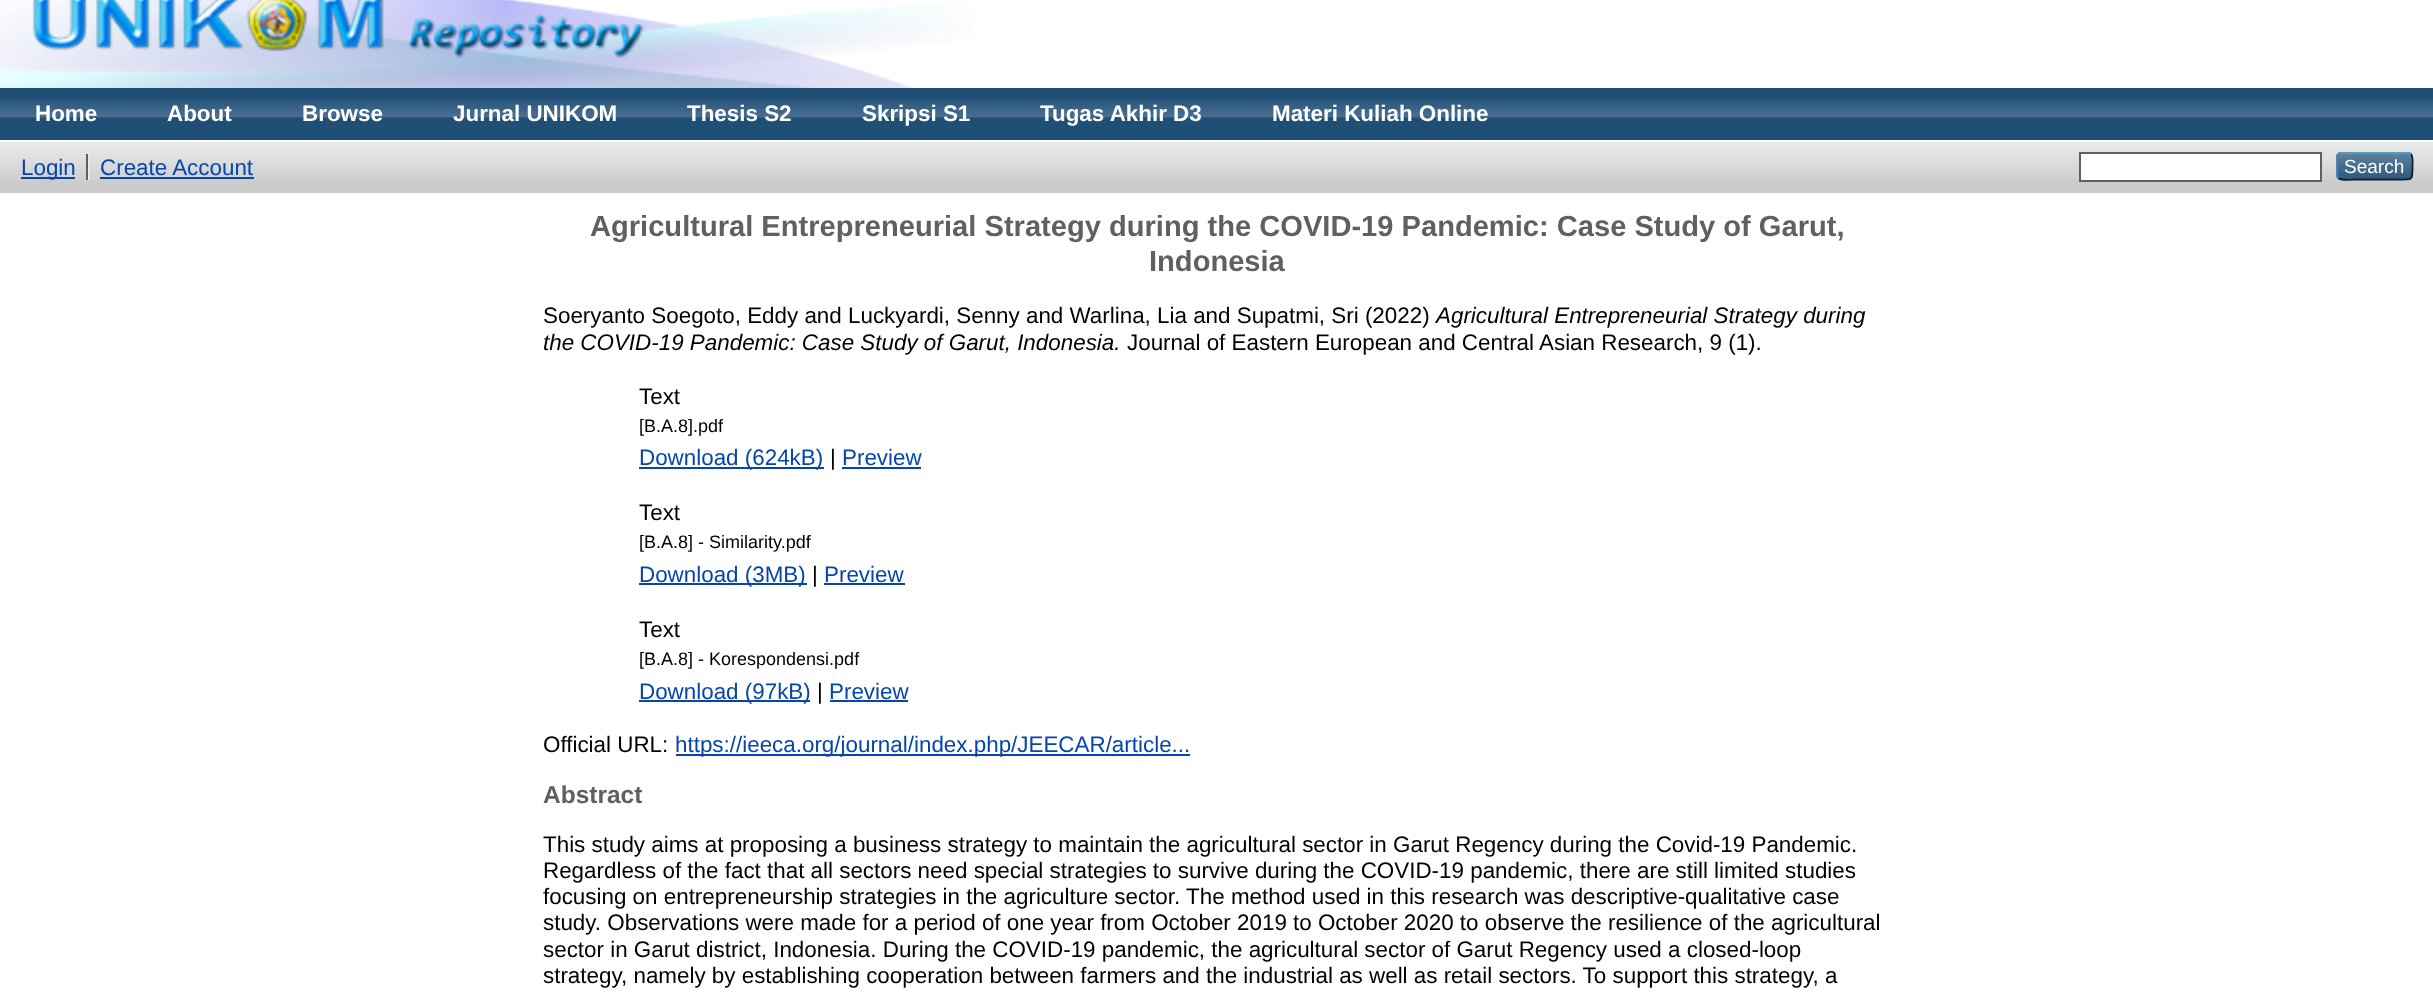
<svg xmlns="http://www.w3.org/2000/svg" width="2433" height="995" viewBox="0 0 2433 995">
  <style>
    .t1 { font: bold 22.4px Liberation Sans; fill: #fff; }
    .t2 { font: 22.4px Liberation Sans; fill: #0645ad; }
    .t3 { font: 19px Liberation Sans; fill: #fff; }
    .t4 { font: bold 29.1px Liberation Sans; fill: #606060; }
    .t5 { font: 22.4px Liberation Sans; fill: #000; }
    .t6 { font: italic 22.4px Liberation Sans; fill: #000; }
    .t7 { font: 18px Liberation Sans; fill: #000; }
    .t8 { font: bold 24.5px Liberation Sans; fill: #606060; }
  </style>
  <rect width="100%" height="100%" fill="#fff"/>
  <image x="0" y="0" width="974" height="88" href="images/1.png"/>
  <image x="32" y="0" width="613" height="58" href="images/2.png"/>
  <rect x="0" y="88" width="2433" height="52" fill="#204f76"/>
  <image x="0" y="98" width="2433" height="20" href="images/3.png"/>
  <text x="35" y="121" class="t1">Home</text>
  <text x="167" y="121" class="t1">About</text>
  <text x="302" y="121" class="t1">Browse</text>
  <text x="453" y="121" class="t1">Jurnal UNIKOM</text>
  <text x="687" y="121" class="t1">Thesis S2</text>
  <text x="862" y="121" class="t1">Skripsi S1</text>
  <text x="1040" y="121" class="t1">Tugas Akhir D3</text>
  <text x="1272" y="121" class="t1">Materi Kuliah Online</text>
  <rect x="0" y="142" width="2433" height="51" fill="#ccc"/>
  <image x="0" y="142" width="2433" height="38" href="images/4.png"/>
  <rect x="21" y="177" width="54" height="2" fill="#0645ad"/>
  <text x="21" y="175" class="t2">Login</text>
  <rect x="86" y="154" width="2" height="26" fill="#606060"/>
  <text x="100" y="175" class="t2">Create Account</text>
  <rect x="88" y="154" width="2" height="26" fill="#e8e8e8"/>
  <rect x="100" y="177" width="154" height="2" fill="#0645ad"/>
  <rect x="2080" y="153" width="241" height="28" fill="#fff" stroke="#606060" stroke-width="2"/>
  <rect x="2336" y="152" width="77" height="28" rx="5" fill="#1f4f76"/>
  <image x="2336" y="152" width="77" height="28" href="images/5.png"/>
  <path d="M2338.5 154.5L2341 153H2408.5L2411 154.5" fill="none" stroke="#5b97c7" stroke-width="1.8"/>
  <path d="M2411 154.5C2413.5 157 2412.5 163 2412.5 166C2412.5 181.5 2413 179.5 2397 179.5H2352.5C2352 179.5 2341.5 181 2338.5 178" fill="none" stroke="#0d2131" stroke-width="1.8"/>
  <path d="M2338.5 178C2337.5 177.5 2337 176 2337 175V157.5C2337 156.5 2337.5 155 2338.5 154.5" fill="none" stroke="#5287b3" stroke-width="1.8"/>
  <text x="2344" y="173" class="t3">Search</text>
  <text x="590" y="236" class="t4">Agricultural Entrepreneurial Strategy during the COVID-19 Pandemic: Case Study of Garut,</text>
  <text x="1149" y="271" class="t4">Indonesia</text>
  <text x="543" y="323" class="t5">Soeryanto Soegoto, Eddy and Luckyardi, Senny and Warlina, Lia and Supatmi, Sri (2022)</text>
  <text x="1436" y="323" class="t6">Agricultural Entrepreneurial Strategy during</text>
  <text x="543" y="350" class="t6">the COVID-19 Pandemic: Case Study of Garut, Indonesia.</text>
  <text x="1127" y="350" class="t5">Journal of Eastern European and Central Asian Research, 9 (1).</text>
  <text x="639" y="404" class="t5">Text</text>
  <text x="639" y="432" class="t7">[B.A.8].pdf</text>
  <rect x="639" y="467" width="185" height="2" fill="#0645ad"/>
  <text x="639" y="465" class="t2">Download (624kB)</text>
  <text x="830" y="465" class="t5">|</text>
  <text x="842" y="465" class="t2">Preview</text>
  <rect x="842" y="467" width="79" height="2" fill="#0645ad"/>
  <text x="639" y="520" class="t5">Text</text>
  <text x="639" y="548" class="t7">[B.A.8] - Similarity.pdf</text>
  <rect x="639" y="583" width="168" height="2" fill="#0645ad"/>
  <text x="639" y="582" class="t2">Download (3MB)</text>
  <text x="812" y="582" class="t5">|</text>
  <text x="824" y="582" class="t2">Preview</text>
  <rect x="824" y="583" width="81" height="2" fill="#0645ad"/>
  <text x="639" y="637" class="t5">Text</text>
  <text x="639" y="665" class="t7">[B.A.8] - Korespondensi.pdf</text>
  <rect x="639" y="700" width="171" height="2" fill="#0645ad"/>
  <text x="639" y="699" class="t2">Download (97kB)</text>
  <text x="817" y="699" class="t5">|</text>
  <text x="829" y="699" class="t2">Preview</text>
  <rect x="830" y="700" width="78" height="2" fill="#0645ad"/>
  <text x="543" y="752" class="t5">Official URL:</text>
  <rect x="676" y="754" width="514" height="2" fill="#0645ad"/>
  <text x="675" y="752" class="t2">https://ieeca.org/journal/index.php/JEECAR/article...</text>
  <text x="543" y="803" class="t8">Abstract</text>
  <text x="543" y="852" class="t5">This study aims at proposing a business strategy to maintain the agricultural sector in Garut Regency during the Covid-19 Pandemic.</text>
  <text x="543" y="878" class="t5">Regardless of the fact that all sectors need special strategies to survive during the COVID-19 pandemic, there are still limited studies</text>
  <text x="543" y="904" class="t5">focusing on entrepreneurship strategies in the agriculture sector. The method used in this research was descriptive-qualitative case</text>
  <text x="543" y="930" class="t5">study. Observations were made for a period of one year from October 2019 to October 2020 to observe the resilience of the agricultural</text>
  <text x="543" y="957" class="t5">sector in Garut district, Indonesia. During the COVID-19 pandemic, the agricultural sector of Garut Regency used a closed-loop</text>
  <text x="543" y="983" class="t5">strategy, namely by establishing cooperation between farmers and the industrial as well as retail sectors. To support this strategy, a</text>
</svg>
